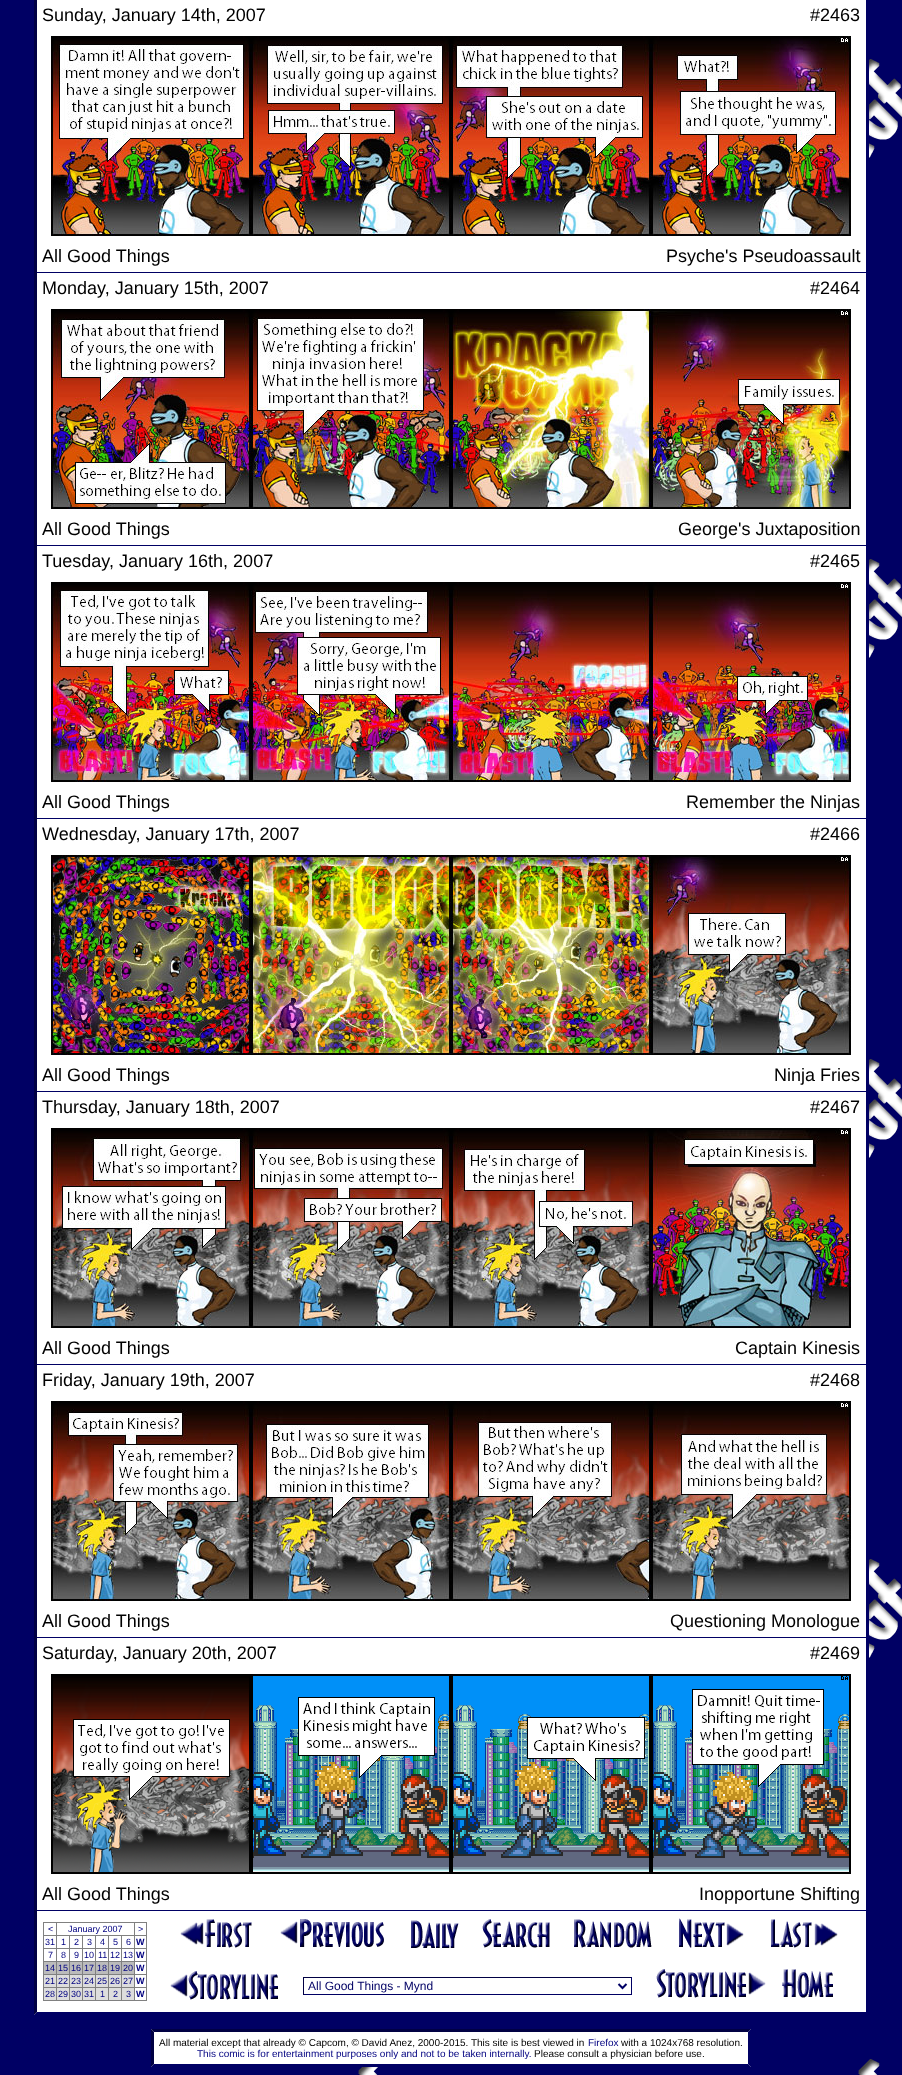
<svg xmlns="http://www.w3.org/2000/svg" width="902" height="2075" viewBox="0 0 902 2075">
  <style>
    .t1 { font: 18px Liberation Sans; fill: #000; }
    .t2 { font: 9px Liberation Sans; fill: #000080; }
    .t3 { font: bold 9px Liberation Sans; fill: #000080; }
    .t4 { font: 12px Liberation Sans; fill: #000064; }
    .t5 { font: 10px Liberation Sans; fill: #000; }
    .t6 { font: 10px Liberation Sans; fill: #000080; }
  </style>
  <rect width="100%" height="100%" fill="#fff"/>
  <image x="0" y="0" width="902" height="2075" href="images/1.png"/>
  <rect x="37" y="0" width="829" height="1910" fill="#fff"/>
  <rect x="866" y="60" width="3" height="1598" fill="#000064"/>
  <rect x="34" y="0" width="3" height="1911" fill="#000043"/>
  <text x="42" y="21" class="t1">Sunday, January 14th, 2007</text>
  <text x="810" y="21" class="t1">#2463</text>
  <image x="51" y="36" width="800" height="200" href="images/2.png"/>
  <rect x="37" y="272" width="829" height="1" fill="#000064"/>
  <text x="42" y="262" class="t1">All Good Things</text>
  <text x="666" y="262" class="t1">Psyche's Pseudoassault</text>
  <text x="42" y="294" class="t1">Monday, January 15th, 2007</text>
  <text x="810" y="294" class="t1">#2464</text>
  <image x="51" y="309" width="800" height="200" href="images/3.png"/>
  <rect x="37" y="545" width="829" height="1" fill="#000064"/>
  <text x="42" y="535" class="t1">All Good Things</text>
  <text x="678" y="535" class="t1">George's Juxtaposition</text>
  <text x="42" y="567" class="t1">Tuesday, January 16th, 2007</text>
  <text x="810" y="567" class="t1">#2465</text>
  <image x="51" y="582" width="800" height="200" href="images/4.png"/>
  <rect x="37" y="818" width="829" height="1" fill="#000064"/>
  <text x="42" y="808" class="t1">All Good Things</text>
  <text x="686" y="808" class="t1">Remember the Ninjas</text>
  <text x="42" y="840" class="t1">Wednesday, January 17th, 2007</text>
  <text x="810" y="840" class="t1">#2466</text>
  <image x="51" y="855" width="800" height="200" href="images/5.png"/>
  <rect x="37" y="1091" width="829" height="1" fill="#000064"/>
  <text x="42" y="1081" class="t1">All Good Things</text>
  <text x="774" y="1081" class="t1">Ninja Fries</text>
  <text x="42" y="1113" class="t1">Thursday, January 18th, 2007</text>
  <text x="810" y="1113" class="t1">#2467</text>
  <image x="51" y="1128" width="800" height="200" href="images/6.png"/>
  <rect x="37" y="1364" width="829" height="1" fill="#000064"/>
  <text x="42" y="1354" class="t1">All Good Things</text>
  <text x="735" y="1354" class="t1">Captain Kinesis</text>
  <text x="42" y="1386" class="t1">Friday, January 19th, 2007</text>
  <text x="810" y="1386" class="t1">#2468</text>
  <image x="51" y="1401" width="800" height="200" href="images/7.png"/>
  <rect x="37" y="1637" width="829" height="1" fill="#000064"/>
  <text x="42" y="1627" class="t1">All Good Things</text>
  <text x="670" y="1627" class="t1">Questioning Monologue</text>
  <text x="42" y="1659" class="t1">Saturday, January 20th, 2007</text>
  <text x="810" y="1659" class="t1">#2469</text>
  <image x="51" y="1674" width="800" height="200" href="images/8.png"/>
  <rect x="92" y="1910" width="24" height="1" fill="#000064"/>
  <text x="42" y="1900" class="t1">All Good Things</text>
  <rect x="592" y="1910" width="24" height="1" fill="#000064"/>
  <text x="699" y="1900" class="t1">Inopportune Shifting</text>
  <rect x="34" y="1911" width="832" height="104" fill="#fff"/>
  <path d="M869 2015H34L37 2012H866Z" fill="#000064"/>
  <path d="M34 2015V1911H37V2012Z" fill="#000043"/>
  <rect x="43" y="1922" width="104" height="1" fill="#808080"/>
  <rect x="146" y="1922" width="1" height="79" fill="#808080"/>
  <rect x="43" y="2000" width="104" height="1" fill="#808080"/>
  <rect x="43" y="1922" width="1" height="79" fill="#808080"/>
  <text x="48" y="1932" class="t2">&lt;</text>
  <rect x="134" y="1935" width="13" height="1" fill="#808080"/>
  <rect x="134" y="1948" width="13" height="1" fill="#808080"/>
  <rect x="134" y="1961" width="13" height="1" fill="#808080"/>
  <rect x="134" y="1974" width="13" height="1" fill="#808080"/>
  <rect x="134" y="1987" width="13" height="1" fill="#808080"/>
  <rect x="134" y="1987" width="1" height="14" fill="#808080"/>
  <rect x="121" y="1987" width="14" height="1" fill="#808080"/>
  <rect x="134" y="1974" width="1" height="14" fill="#808080"/>
  <rect x="121" y="1974" width="14" height="1" fill="#808080"/>
  <rect x="134" y="1961" width="1" height="14" fill="#808080"/>
  <rect x="121" y="1961" width="14" height="1" fill="#808080"/>
  <rect x="134" y="1948" width="1" height="14" fill="#808080"/>
  <rect x="121" y="1948" width="14" height="1" fill="#808080"/>
  <rect x="134" y="1935" width="1" height="14" fill="#808080"/>
  <rect x="121" y="1935" width="14" height="1" fill="#808080"/>
  <rect x="121" y="1987" width="1" height="14" fill="#808080"/>
  <rect x="108" y="1987" width="14" height="1" fill="#808080"/>
  <rect x="121" y="1974" width="1" height="14" fill="#808080"/>
  <rect x="108" y="1974" width="14" height="1" fill="#808080"/>
  <rect x="121" y="1961" width="1" height="14" fill="#808080"/>
  <rect x="108" y="1961" width="14" height="1" fill="#808080"/>
  <rect x="121" y="1948" width="1" height="14" fill="#808080"/>
  <rect x="108" y="1948" width="14" height="1" fill="#808080"/>
  <rect x="121" y="1935" width="1" height="14" fill="#808080"/>
  <rect x="108" y="1935" width="14" height="1" fill="#808080"/>
  <rect x="108" y="1987" width="1" height="14" fill="#808080"/>
  <rect x="95" y="1987" width="14" height="1" fill="#808080"/>
  <rect x="108" y="1974" width="1" height="14" fill="#808080"/>
  <rect x="95" y="1974" width="14" height="1" fill="#808080"/>
  <rect x="108" y="1961" width="1" height="14" fill="#808080"/>
  <rect x="95" y="1961" width="14" height="1" fill="#808080"/>
  <rect x="108" y="1948" width="1" height="14" fill="#808080"/>
  <rect x="95" y="1948" width="14" height="1" fill="#808080"/>
  <rect x="108" y="1935" width="1" height="14" fill="#808080"/>
  <rect x="95" y="1935" width="14" height="1" fill="#808080"/>
  <rect x="95" y="1987" width="1" height="14" fill="#808080"/>
  <rect x="82" y="1987" width="14" height="1" fill="#808080"/>
  <rect x="95" y="1974" width="1" height="14" fill="#808080"/>
  <rect x="82" y="1974" width="14" height="1" fill="#808080"/>
  <rect x="95" y="1961" width="1" height="14" fill="#808080"/>
  <rect x="82" y="1961" width="14" height="1" fill="#808080"/>
  <rect x="95" y="1948" width="1" height="14" fill="#808080"/>
  <rect x="82" y="1948" width="14" height="1" fill="#808080"/>
  <rect x="95" y="1935" width="1" height="14" fill="#808080"/>
  <rect x="82" y="1935" width="14" height="1" fill="#808080"/>
  <rect x="82" y="1987" width="1" height="14" fill="#808080"/>
  <rect x="69" y="1987" width="14" height="1" fill="#808080"/>
  <rect x="82" y="1974" width="1" height="14" fill="#808080"/>
  <rect x="69" y="1974" width="14" height="1" fill="#808080"/>
  <rect x="82" y="1961" width="1" height="14" fill="#808080"/>
  <rect x="69" y="1961" width="14" height="1" fill="#808080"/>
  <rect x="82" y="1948" width="1" height="14" fill="#808080"/>
  <rect x="69" y="1948" width="14" height="1" fill="#808080"/>
  <rect x="82" y="1935" width="1" height="14" fill="#808080"/>
  <rect x="69" y="1935" width="14" height="1" fill="#808080"/>
  <rect x="69" y="1987" width="1" height="14" fill="#808080"/>
  <rect x="56" y="1987" width="14" height="1" fill="#808080"/>
  <rect x="69" y="1974" width="1" height="14" fill="#808080"/>
  <rect x="56" y="1974" width="14" height="1" fill="#808080"/>
  <rect x="69" y="1961" width="1" height="14" fill="#808080"/>
  <rect x="56" y="1961" width="14" height="1" fill="#808080"/>
  <rect x="69" y="1948" width="1" height="14" fill="#808080"/>
  <rect x="56" y="1948" width="14" height="1" fill="#808080"/>
  <rect x="69" y="1935" width="1" height="14" fill="#808080"/>
  <rect x="56" y="1935" width="14" height="1" fill="#808080"/>
  <rect x="56" y="1987" width="1" height="14" fill="#808080"/>
  <rect x="43" y="1987" width="14" height="1" fill="#808080"/>
  <rect x="56" y="1974" width="1" height="14" fill="#808080"/>
  <rect x="43" y="1974" width="14" height="1" fill="#808080"/>
  <rect x="56" y="1961" width="1" height="14" fill="#808080"/>
  <rect x="43" y="1961" width="14" height="1" fill="#808080"/>
  <rect x="56" y="1948" width="1" height="14" fill="#808080"/>
  <rect x="43" y="1948" width="14" height="1" fill="#808080"/>
  <rect x="56" y="1935" width="1" height="14" fill="#808080"/>
  <rect x="43" y="1935" width="14" height="1" fill="#808080"/>
  <rect x="56" y="1922" width="1" height="14" fill="#808080"/>
  <text x="68" y="1932" class="t2">January 2007</text>
  <rect x="134" y="1922" width="1" height="14" fill="#808080"/>
  <text x="138" y="1932" class="t2">&gt;</text>
  <text x="45" y="1945" class="t2">31</text>
  <text x="61" y="1945" class="t2">1</text>
  <text x="74" y="1945" class="t2">2</text>
  <text x="87" y="1945" class="t2">3</text>
  <text x="100" y="1945" class="t2">4</text>
  <text x="113" y="1945" class="t2">5</text>
  <text x="126" y="1945" class="t2">6</text>
  <text x="136" y="1945" class="t3">W</text>
  <text x="48" y="1958" class="t2">7</text>
  <text x="61" y="1958" class="t2">8</text>
  <text x="74" y="1958" class="t2">9</text>
  <text x="84" y="1958" class="t2">10</text>
  <text x="98" y="1958" class="t2">11</text>
  <text x="110" y="1958" class="t2">12</text>
  <text x="123" y="1958" class="t2">13</text>
  <text x="136" y="1958" class="t3">W</text>
  <rect x="44" y="1962" width="12" height="12" fill="#bbb"/>
  <text x="45" y="1971" class="t2">14</text>
  <rect x="57" y="1962" width="12" height="12" fill="#bbb"/>
  <text x="58" y="1971" class="t2">15</text>
  <rect x="70" y="1962" width="12" height="12" fill="#bbb"/>
  <text x="71" y="1971" class="t2">16</text>
  <rect x="83" y="1962" width="12" height="12" fill="#bbb"/>
  <text x="84" y="1971" class="t2">17</text>
  <rect x="96" y="1962" width="12" height="12" fill="#bbb"/>
  <text x="97" y="1971" class="t2">18</text>
  <rect x="109" y="1962" width="12" height="12" fill="#bbb"/>
  <text x="110" y="1971" class="t2">19</text>
  <rect x="122" y="1962" width="12" height="12" fill="#bbb"/>
  <text x="123" y="1971" class="t2">20</text>
  <text x="136" y="1971" class="t3">W</text>
  <rect x="44" y="1975" width="12" height="12" fill="#ddd"/>
  <text x="45" y="1984" class="t2">21</text>
  <rect x="57" y="1975" width="12" height="12" fill="#ddd"/>
  <text x="58" y="1984" class="t2">22</text>
  <rect x="70" y="1975" width="12" height="12" fill="#ddd"/>
  <text x="71" y="1984" class="t2">23</text>
  <rect x="83" y="1975" width="12" height="12" fill="#ddd"/>
  <text x="84" y="1984" class="t2">24</text>
  <rect x="96" y="1975" width="12" height="12" fill="#ddd"/>
  <text x="97" y="1984" class="t2">25</text>
  <rect x="109" y="1975" width="12" height="12" fill="#ddd"/>
  <text x="110" y="1984" class="t2">26</text>
  <rect x="122" y="1975" width="12" height="12" fill="#ddd"/>
  <text x="123" y="1984" class="t2">27</text>
  <text x="136" y="1984" class="t3">W</text>
  <rect x="44" y="1988" width="12" height="12" fill="#ddd"/>
  <text x="45" y="1997" class="t2">28</text>
  <rect x="57" y="1988" width="12" height="12" fill="#ddd"/>
  <text x="58" y="1997" class="t2">29</text>
  <rect x="70" y="1988" width="12" height="12" fill="#ddd"/>
  <text x="71" y="1997" class="t2">30</text>
  <rect x="83" y="1988" width="12" height="12" fill="#ddd"/>
  <text x="84" y="1997" class="t2">31</text>
  <rect x="96" y="1988" width="12" height="12" fill="#ddd"/>
  <text x="100" y="1997" class="t2">1</text>
  <rect x="109" y="1988" width="12" height="12" fill="#ddd"/>
  <text x="113" y="1997" class="t2">2</text>
  <rect x="122" y="1988" width="12" height="12" fill="#ddd"/>
  <text x="126" y="1997" class="t2">3</text>
  <text x="136" y="1997" class="t3">W</text>
  <image x="180" y="1919" width="72" height="29" href="images/9.png"/>
  <image x="280" y="1919" width="104" height="28" href="images/10.png"/>
  <image x="411" y="1920" width="48" height="28" href="images/11.png"/>
  <image x="482" y="1919" width="68" height="29" href="images/12.png"/>
  <image x="574" y="1919" width="78" height="29" href="images/13.png"/>
  <image x="679" y="1918" width="65" height="30" href="images/14.png"/>
  <image x="771" y="1919" width="67" height="29" href="images/15.png"/>
  <image x="170" y="1971" width="108" height="29" href="images/16.png"/>
  <rect x="303" y="1977" width="329" height="1" fill="#000043"/>
  <rect x="631" y="1977" width="1" height="18" fill="#000064"/>
  <rect x="303" y="1994" width="329" height="1" fill="#000064"/>
  <rect x="303" y="1977" width="1" height="18" fill="#000043"/>
  <path d="M618.5 1984L622.5 1988L626.5 1984" fill="none" stroke="#000064" stroke-width="2"/>
  <text x="308" y="1990" class="t4">All Good Things - Mynd</text>
  <image x="656" y="1969" width="110" height="29" href="images/17.png"/>
  <image x="782" y="1969" width="51" height="29" href="images/18.png"/>
  <rect x="151" y="2029" width="600" height="38" fill="#fff"/>
  <path d="M151 2029H751L748 2032H154Z" fill="#000043"/>
  <path d="M751 2029V2067L748 2064V2032Z" fill="#000064"/>
  <path d="M751 2067H151L154 2064H748Z" fill="#000064"/>
  <path d="M151 2067V2029L154 2032V2064Z" fill="#000043"/>
  <text x="159" y="2046" class="t5">All material except that already © Capcom, © David Anez, 2000-2015. This site is best viewed in</text>
  <text x="588" y="2046" class="t6">Firefox</text>
  <text x="621" y="2046" class="t5">with a 1024x768 resolution.</text>
  <text x="197" y="2057" class="t6">This comic is for entertainment purposes only and not to be taken internally.</text>
  <text x="534" y="2057" class="t5">Please consult a physician before use.</text>
</svg>
